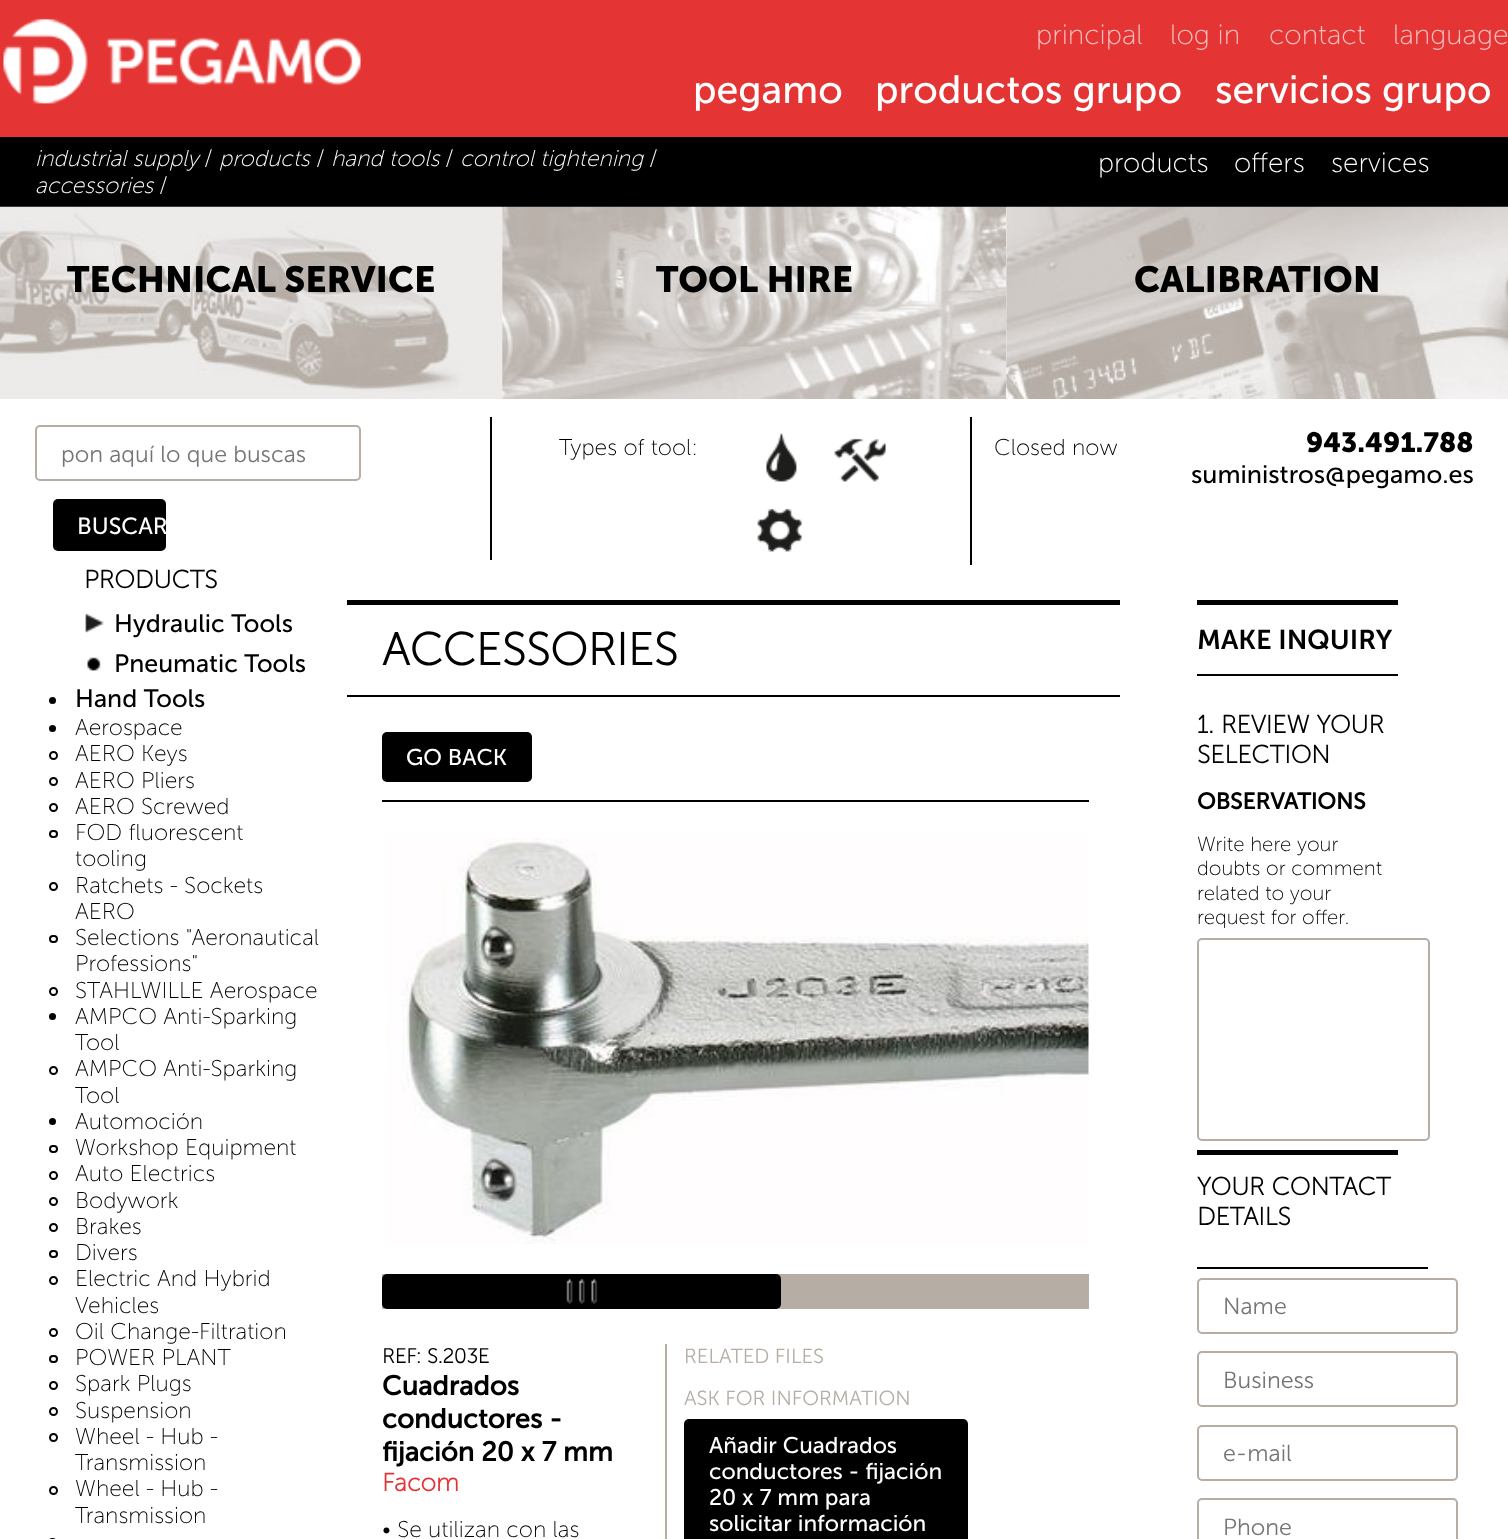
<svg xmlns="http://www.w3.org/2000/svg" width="1508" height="1539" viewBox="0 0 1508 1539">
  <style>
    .t1 { font: 200 28px Museo Sans; fill: #f7c2c2; }
    .t2 { font: 39.25px Museo Sans; fill: #fff; }
    .t3 { font: italic 200 22.75px Museo Sans; fill: #fff; }
    .t4 { font: 200 22.75px Museo Sans; fill: #fff; }
    .t5 { font: 200 27.75px Museo Sans; fill: #fff; }
    .t6 { font: bold 36.25px Museo Sans; fill: #000; }
    .t7 { font: 300 23.25px Museo Sans; fill: #757575; }
    .t8 { font: 23.25px Museo Sans; fill: #fff; }
    .t9 { font: 200 22.75px Museo Sans; fill: #000; }
    .t10 { font: bold 27.75px Museo Sans; fill: #000; }
    .t11 { font: 25.25px Museo Sans; fill: #000; }
    .t12 { font: bold 25px 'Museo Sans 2'; fill: #000; }
    .t13 { font: 25px Museo Sans; fill: #000; }
    .t14 { font: bold 45.5px 'Museo Sans 2'; fill: #000; }
    .t15 { font: 22.75px Museo Sans; fill: #fff; }
    .t16 { font: bold 20.4px 'Museo Sans 2'; fill: #000; }
    .t17 { font: bold 27.25px 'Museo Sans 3'; fill: #000; }
    .t18 { font: bold 25px 'Museo Sans 2'; fill: #e43534; }
    .t19 { font: 300 20.4px Museo Sans; fill: #b6ada4; }
    .t20 { font: 600 27.25px Museo Sans; fill: #000; }
    .t21 { font: bold 22.75px 'Museo Sans 3'; fill: #000; }
    .t22 { font: 200 20.4px Museo Sans; fill: #000; }
  </style>
  <defs>
    <clipPath id="clip1"><rect x="53" y="499" width="113" height="52" rx="5"/></clipPath>
  </defs>
  <rect width="100%" height="100%" fill="#000"/>
  <rect x="0" y="0" width="1508" height="137" fill="#e43534"/>
  <image x="3" y="18" width="358" height="86" href="images/1.png"/>
  <text x="1036" y="44" class="t1">principal</text>
  <text x="1170" y="44" class="t1">log in</text>
  <text x="1269" y="44" class="t1">contact</text>
  <text x="1393" y="44" class="t1">language</text>
  <text x="693" y="103" class="t2">pegamo</text>
  <text x="875" y="103" class="t2">productos grupo</text>
  <text x="1215" y="103" class="t2">servicios grupo</text>
  <text x="35" y="166" class="t3">industrial supply</text>
  <text x="204" y="166" class="t4">/</text>
  <text x="219" y="166" class="t3">products</text>
  <text x="316" y="166" class="t4">/</text>
  <text x="331" y="166" class="t3">hand tools</text>
  <text x="445" y="166" class="t4">/</text>
  <text x="460" y="166" class="t3">control tightening</text>
  <text x="649" y="166" class="t4">/</text>
  <text x="35" y="193" class="t3">accessories</text>
  <text x="159" y="193" class="t4">/</text>
  <text x="1098" y="172" class="t5">products</text>
  <text x="1234" y="172" class="t5">offers</text>
  <text x="1331" y="172" class="t5">services</text>
  <rect x="0" y="207" width="1508" height="1332" fill="#fff"/>
  <image x="0" y="206" width="502" height="193" href="images/2.png"/>
  <text x="67" y="292" class="t6">TECHNICAL SERVICE</text>
  <image x="502" y="206" width="504" height="193" href="images/3.png"/>
  <text x="656" y="292" class="t6">TOOL HIRE</text>
  <image x="1006" y="206" width="502" height="193" href="images/4.png"/>
  <text x="1134" y="292" class="t6">CALIBRATION</text>
  <rect x="490" y="417" width="2" height="143" fill="#000"/>
  <rect x="36" y="426" width="324" height="54" rx="4" fill="none" stroke="#b6ada4" stroke-width="2"/>
  <text x="61" y="462" class="t7">pon aquí lo que buscas</text>
  <rect x="53" y="499" width="113" height="52" rx="5" fill="#000"/>
  <g clip-path="url(#clip1)">
    <text x="77" y="534" class="t8">BUSCAR</text>
  </g>
  <rect x="970" y="417" width="2" height="148" fill="#000"/>
  <text x="559" y="455" class="t9">Types of tool:</text>
  <image x="766" y="433" width="31" height="49" href="images/5.png"/>
  <image x="834" y="438" width="52" height="44" href="images/6.png"/>
  <image x="757" y="508" width="45" height="44" href="images/7.png"/>
  <text x="994" y="455" class="t9">Closed now</text>
  <text x="1306" y="452" class="t10">943.491.788</text>
  <text x="1191" y="483" class="t11">suministros@pegamo.es</text>
  <text x="84" y="588" class="t12">PRODUCTS</text>
  <image x="85" y="613" width="19" height="20" href="images/8.png"/>
  <text x="114" y="632" class="t13">Hydraulic Tools</text>
  <image x="87" y="657" width="14" height="14" href="images/9.png"/>
  <text x="114" y="672" class="t13">Pneumatic Tools</text>
  <circle cx="52.5" cy="700.5" r="3.5" fill="#000"/>
  <text x="75" y="707" class="t13">Hand Tools</text>
  <circle cx="52.5" cy="728.5" r="3.5" fill="#000"/>
  <text x="75" y="735" class="t9">Aerospace</text>
  <circle cx="53.5" cy="755.5" r="3.5" fill="none" stroke="#000" stroke-width="2"/>
  <text x="75" y="761" class="t9">AERO Keys</text>
  <circle cx="53.5" cy="781.5" r="3.5" fill="none" stroke="#000" stroke-width="2"/>
  <text x="75" y="788" class="t9">AERO Pliers</text>
  <circle cx="53.5" cy="807.5" r="3.5" fill="none" stroke="#000" stroke-width="2"/>
  <text x="75" y="814" class="t9">AERO Screwed</text>
  <rect x="50" y="831" width="7" height="6" rx="3" fill="none" stroke="#000" stroke-width="2"/>
  <text x="75" y="840" class="t9">FOD fluorescent</text>
  <text x="75" y="866" class="t9">tooling</text>
  <circle cx="53.5" cy="886.5" r="3.5" fill="none" stroke="#000" stroke-width="2"/>
  <text x="75" y="893" class="t9">Ratchets - Sockets</text>
  <text x="75" y="919" class="t9">AERO</text>
  <rect x="50" y="936" width="7" height="6" rx="3" fill="none" stroke="#000" stroke-width="2"/>
  <text x="75" y="945" class="t9">Selections "Aeronautical</text>
  <text x="75" y="971" class="t9">Professions"</text>
  <circle cx="53.5" cy="991.5" r="3.5" fill="none" stroke="#000" stroke-width="2"/>
  <text x="75" y="998" class="t9">STAHLWILLE Aerospace</text>
  <circle cx="52.5" cy="1016.5" r="3.5" fill="#000"/>
  <text x="75" y="1024" class="t9">AMPCO Anti-Sparking</text>
  <text x="75" y="1050" class="t9">Tool</text>
  <circle cx="53.5" cy="1070.5" r="3.5" fill="none" stroke="#000" stroke-width="2"/>
  <text x="75" y="1076" class="t9">AMPCO Anti-Sparking</text>
  <text x="75" y="1103" class="t9">Tool</text>
  <circle cx="52.5" cy="1121.5" r="3.5" fill="#000"/>
  <text x="75" y="1129" class="t9">Automoción</text>
  <rect x="50" y="1146" width="7" height="6" rx="3" fill="none" stroke="#000" stroke-width="2"/>
  <text x="75" y="1155" class="t9">Workshop Equipment</text>
  <circle cx="53.5" cy="1175.5" r="3.5" fill="none" stroke="#000" stroke-width="2"/>
  <text x="75" y="1181" class="t9">Auto Electrics</text>
  <circle cx="53.5" cy="1201.5" r="3.5" fill="none" stroke="#000" stroke-width="2"/>
  <text x="75" y="1208" class="t9">Bodywork</text>
  <circle cx="53.5" cy="1227.5" r="3.5" fill="none" stroke="#000" stroke-width="2"/>
  <text x="75" y="1234" class="t9">Brakes</text>
  <rect x="50" y="1251" width="7" height="6" rx="3" fill="none" stroke="#000" stroke-width="2"/>
  <text x="75" y="1260" class="t9">Divers</text>
  <circle cx="53.5" cy="1280.5" r="3.5" fill="none" stroke="#000" stroke-width="2"/>
  <text x="75" y="1286" class="t9">Electric And Hybrid</text>
  <text x="75" y="1313" class="t9">Vehicles</text>
  <circle cx="53.5" cy="1332.5" r="3.5" fill="none" stroke="#000" stroke-width="2"/>
  <text x="75" y="1339" class="t9">Oil Change-Filtration</text>
  <rect x="50" y="1356" width="7" height="6" rx="3" fill="none" stroke="#000" stroke-width="2"/>
  <text x="75" y="1365" class="t9">POWER PLANT</text>
  <circle cx="53.5" cy="1385.5" r="3.5" fill="none" stroke="#000" stroke-width="2"/>
  <text x="75" y="1391" class="t9">Spark Plugs</text>
  <circle cx="53.5" cy="1411.5" r="3.5" fill="none" stroke="#000" stroke-width="2"/>
  <text x="75" y="1418" class="t9">Suspension</text>
  <circle cx="53.5" cy="1437.5" r="3.5" fill="none" stroke="#000" stroke-width="2"/>
  <text x="75" y="1444" class="t9">Wheel - Hub -</text>
  <text x="75" y="1470" class="t9">Transmission</text>
  <circle cx="53.5" cy="1490.5" r="3.5" fill="none" stroke="#000" stroke-width="2"/>
  <text x="75" y="1496" class="t9">Wheel - Hub -</text>
  <text x="75" y="1523" class="t9">Transmission</text>
  <rect x="49" y="1538" width="7" height="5" rx="3.5" fill="#000"/>
  <rect x="347" y="600" width="773" height="5" fill="#000"/>
  <rect x="347" y="695" width="773" height="2" fill="#000"/>
  <text x="382" y="665" class="t14">ACCESSORIES</text>
  <rect x="382" y="732" width="150" height="50" rx="5" fill="#000"/>
  <text x="406" y="765" class="t15">GO BACK</text>
  <rect x="382" y="800" width="707" height="2" fill="#000"/>
  <image x="387" y="838" width="702" height="406" href="images/10.png"/>
  <rect x="382" y="1274" width="707" height="35" fill="#b6ada4"/>
  <rect x="382" y="1274" width="399" height="35" rx="5" fill="#000"/>
  <image x="566" y="1278" width="32" height="27" href="images/11.png"/>
  <rect x="665" y="1344" width="2" height="195" fill="#b6ada4"/>
  <text x="382" y="1363" class="t16">REF: S.203E</text>
  <text x="382" y="1395" class="t17">Cuadrados</text>
  <text x="382" y="1428" class="t17">conductores -</text>
  <text x="382" y="1461" class="t17">fijación 20 x 7 mm</text>
  <text x="382" y="1491" class="t18">Facom</text>
  <text x="382" y="1537" class="t9">• Se utilizan con las</text>
  <text x="684" y="1363" class="t19">RELATED FILES</text>
  <text x="684" y="1405" class="t19">ASK FOR INFORMATION</text>
  <rect x="684" y="1419" width="284" height="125" rx="5" fill="#000"/>
  <text x="709" y="1453" class="t15">Añadir Cuadrados</text>
  <text x="709" y="1479" class="t15">conductores - fijación</text>
  <text x="709" y="1505" class="t15">20 x 7 mm para</text>
  <text x="709" y="1531" class="t15">solicitar información</text>
  <rect x="1197" y="600" width="201" height="5" fill="#000"/>
  <rect x="1197" y="674" width="201" height="2" fill="#000"/>
  <text x="1197" y="649" class="t20">MAKE INQUIRY</text>
  <text x="1197" y="733" class="t12">1. REVIEW YOUR</text>
  <text x="1197" y="763" class="t12">SELECTION</text>
  <text x="1197" y="809" class="t21">OBSERVATIONS</text>
  <text x="1197" y="851" class="t22">Write here your</text>
  <text x="1197" y="875" class="t22">doubts or comment</text>
  <text x="1197" y="900" class="t22">related to your</text>
  <text x="1197" y="924" class="t22">request for offer.</text>
  <rect x="1198" y="939" width="231" height="201" rx="4" fill="none" stroke="#b6ada4" stroke-width="2"/>
  <rect x="1197" y="1150" width="201" height="5" fill="#000"/>
  <text x="1197" y="1195" class="t12">YOUR CONTACT</text>
  <text x="1197" y="1225" class="t12">DETAILS</text>
  <rect x="1197" y="1267" width="231" height="2" fill="#000"/>
  <rect x="1198" y="1279" width="259" height="54" rx="4" fill="none" stroke="#b6ada4" stroke-width="2"/>
  <text x="1223" y="1314" class="t7">Name</text>
  <rect x="1198" y="1352" width="259" height="54" rx="4" fill="none" stroke="#b6ada4" stroke-width="2"/>
  <text x="1223" y="1388" class="t7">Business</text>
  <rect x="1198" y="1426" width="259" height="54" rx="4" fill="none" stroke="#b6ada4" stroke-width="2"/>
  <text x="1223" y="1461" class="t7">e-mail</text>
  <rect x="1198" y="1499" width="259" height="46" rx="4" fill="none" stroke="#b6ada4" stroke-width="2"/>
  <text x="1223" y="1535" class="t7">Phone</text>
</svg>
